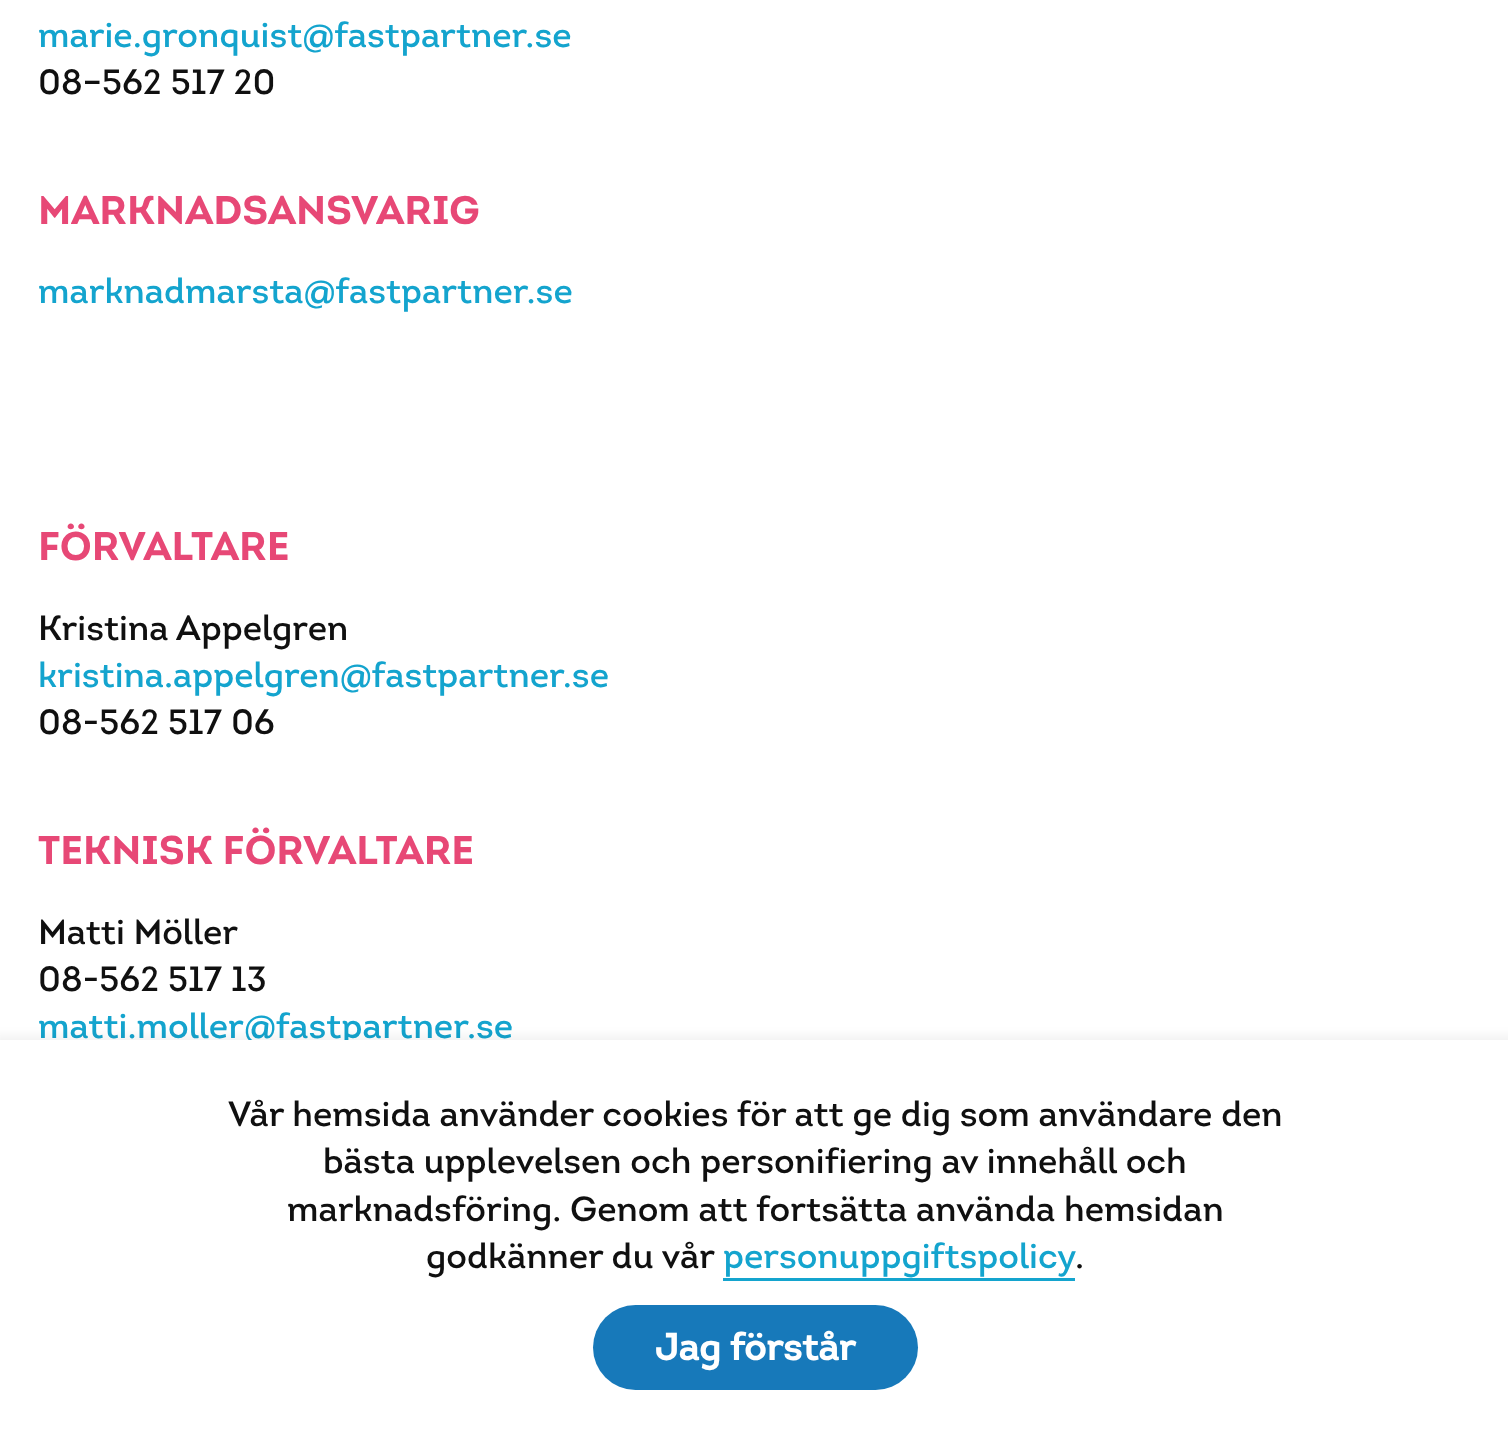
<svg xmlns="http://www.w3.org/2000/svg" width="1508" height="1440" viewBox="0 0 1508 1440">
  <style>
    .t1 { font: 35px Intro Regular; fill: #14a4ce; }
    .t2 { font: 35px Intro Regular; fill: #101010; }
    .t3 { font: bold 40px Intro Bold; fill: #e74876; }
    .t4 { font: bold 37.5px Intro Regular; fill: #fff; }
  </style>
  <rect width="100%" height="100%" fill="#fff"/>
  <text x="38" y="47" class="t1">marie.gronquist@fastpartner.se</text>
  <text x="38" y="94" class="t2">08–562 517 20</text>
  <text x="38" y="224" class="t3">MARKNADSANSVARIG</text>
  <text x="38" y="303" class="t1">marknadmarsta@fastpartner.se</text>
  <text x="38" y="560" class="t3">FÖRVALTARE</text>
  <text x="38" y="640" class="t2">Kristina Appelgren</text>
  <text x="38" y="687" class="t1">kristina.appelgren@fastpartner.se</text>
  <text x="38" y="734" class="t2">08-562 517 06</text>
  <text x="38" y="864" class="t3">TEKNISK FÖRVALTARE</text>
  <text x="38" y="944" class="t2">Matti Möller</text>
  <text x="38" y="991" class="t2">08-562 517 13</text>
  <text x="38" y="1038" class="t1">matti.moller@fastpartner.se</text>
  <rect x="-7" y="1035" width="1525" height="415" fill="#0000000d" filter="blur(5px)"/>
  <rect x="0" y="1040" width="1508" height="400" fill="#fff"/>
  <text x="228" y="1126" class="t2">Vår hemsida använder cookies för att ge dig som användare den</text>
  <text x="323" y="1173" class="t2">bästa upplevelsen och personifiering av innehåll och</text>
  <text x="287" y="1221" class="t2">marknadsföring. Genom att fortsätta använda hemsidan</text>
  <text x="426" y="1268" class="t2">godkänner du vår</text>
  <text x="723" y="1268" class="t1">personuppgiftspolicy</text>
  <rect x="723" y="1278" width="352" height="3" fill="#14a4ce"/>
  <text x="1075" y="1268" class="t2">.</text>
  <rect x="593" y="1305" width="325" height="85" rx="42.5" fill="#1779ba"/>
  <text x="655" y="1360" class="t4">Jag förstår</text>
</svg>
